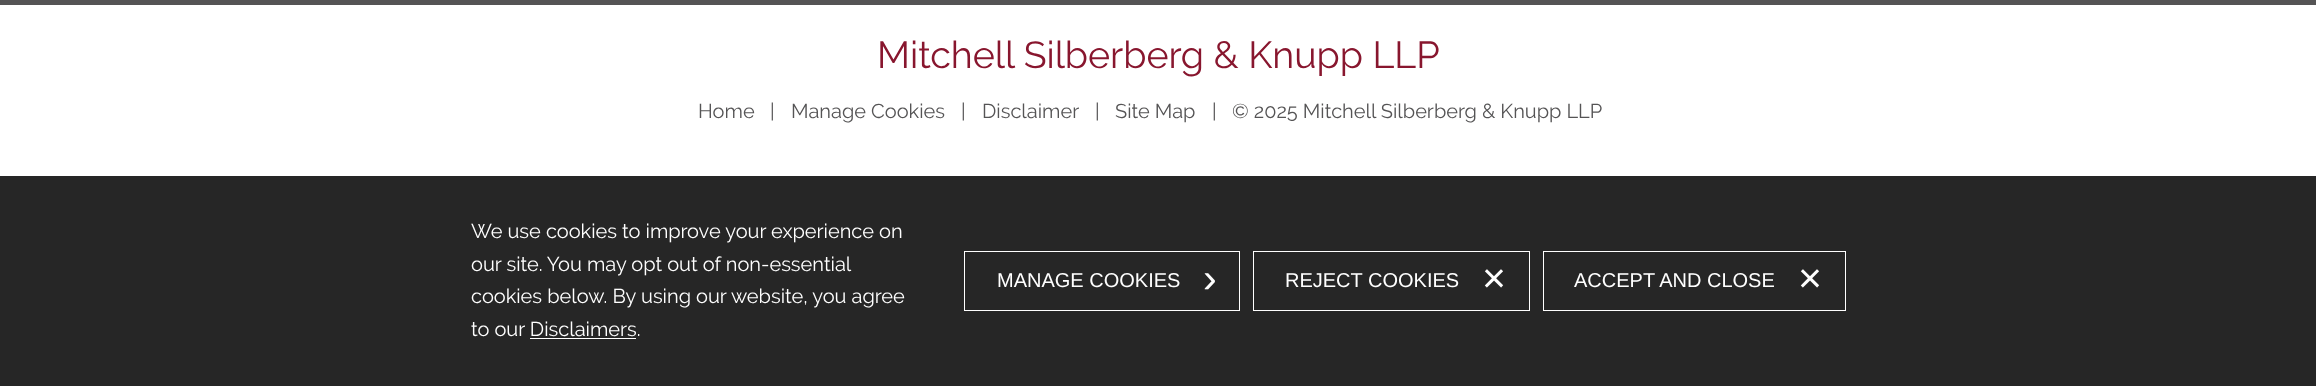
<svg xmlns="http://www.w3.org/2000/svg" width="2316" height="386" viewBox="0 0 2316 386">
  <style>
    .t1 { font: 37.6px Raleway; fill: #88162e; }
    .t2 { font: 20px Raleway; fill: #555455; }
    .t3 { font: 20px Raleway; fill: #fff; }
    .t4 { font: 20px Liberation Sans; fill: #fff; }
    .t5 { font: 41px Liberation Sans; fill: #fff; }
  </style>
  <rect width="100%" height="100%" fill="#fff"/>
  <rect x="0" y="0" width="2316" height="5" fill="#555455"/>
  <text x="877" y="68" class="t1">Mitchell Silberberg &amp; Knupp LLP</text>
  <text x="698" y="118" class="t2">Home</text>
  <text x="770" y="118" class="t2">|</text>
  <text x="791" y="118" class="t2">Manage Cookies</text>
  <text x="961" y="118" class="t2">|</text>
  <text x="982" y="118" class="t2">Disclaimer</text>
  <text x="1095" y="118" class="t2">|</text>
  <text x="1115" y="118" class="t2">Site Map</text>
  <text x="1212" y="118" class="t2">|</text>
  <text x="1232" y="118" class="t2">© 2025 Mitchell Silberberg &amp; Knupp LLP</text>
  <rect x="0" y="176" width="2316" height="210" fill="#262626"/>
  <text x="471" y="238" class="t3">We use cookies to improve your experience on</text>
  <text x="471" y="271" class="t3">our site. You may opt out of non-essential</text>
  <text x="471" y="303" class="t3">cookies below. By using our website, you agree</text>
  <text x="471" y="336" class="t3">to our Disclaimers.</text>
  <rect x="530" y="338" width="106" height="1" fill="#fff"/>
  <rect x="964.5" y="251.5" width="275" height="59" fill="none" stroke="#fff"/>
  <text x="997" y="287" class="t4">MANAGE COOKIES</text>
  <text x="1203" y="292" class="t5">›</text>
  <rect x="1253.5" y="251.5" width="276" height="59" fill="none" stroke="#fff"/>
  <text x="1285" y="287" class="t4">REJECT COOKIES</text>
  <text x="1482" y="292" class="t5">×</text>
  <rect x="1543.5" y="251.5" width="302" height="59" fill="none" stroke="#fff"/>
  <text x="1574" y="287" class="t4">ACCEPT AND CLOSE</text>
  <text x="1798" y="292" class="t5">×</text>
</svg>
